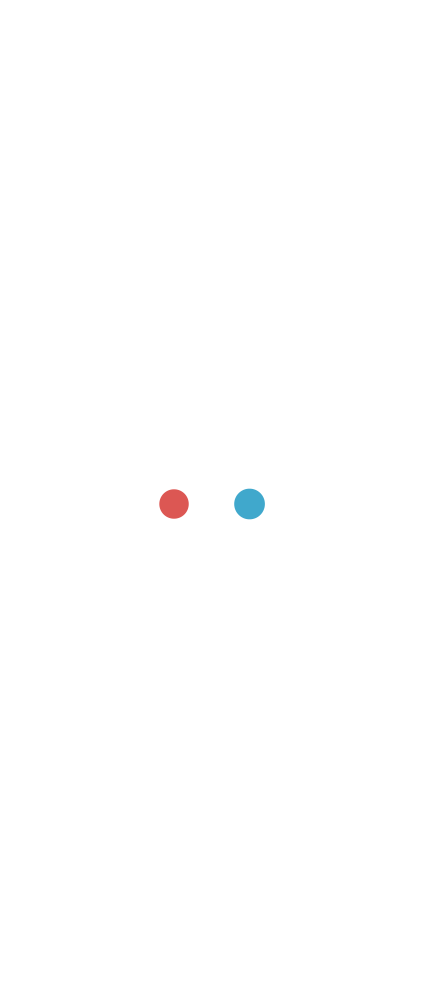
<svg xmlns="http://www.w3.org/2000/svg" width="422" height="1008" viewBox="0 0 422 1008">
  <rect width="100%" height="100%" fill="#fff"/>
  <image x="159" y="488" width="106" height="32" href="images/1.png"/>
</svg>
